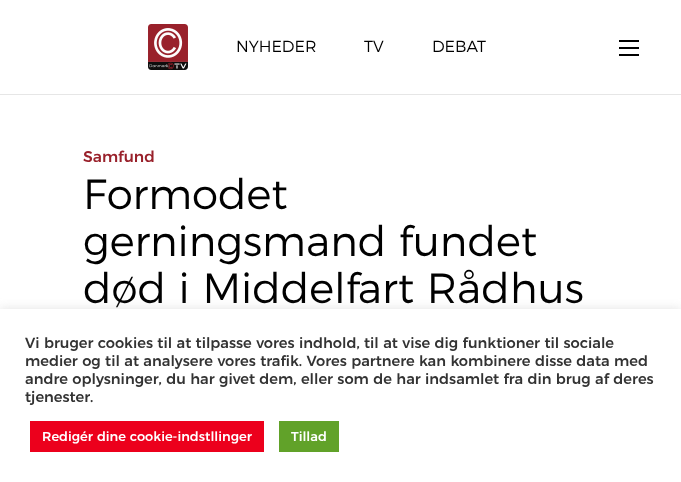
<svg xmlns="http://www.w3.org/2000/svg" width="681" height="482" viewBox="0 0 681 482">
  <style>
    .t1 { font: 300 16px Montserrat; fill: #000; }
    .t2 { font: 500 15.5px Montserrat; fill: #99212b; }
    .t3 { font: 300 42px Montserrat; fill: #000; }
    .t4 { font: 500 14.65px Montserrat; fill: #333; }
    .t5 { font: 500 13px Montserrat; fill: #fff; }
  </style>
  <rect width="100%" height="100%" fill="#fff"/>
  <rect x="0" y="94" width="681" height="1" fill="#e6e6e6"/>
  <image x="148" y="24" width="40" height="46" href="images/1.png"/>
  <text x="236" y="52" class="t1">NYHEDER</text>
  <text x="364" y="52" class="t1">TV</text>
  <text x="432" y="52" class="t1">DEBAT</text>
  <rect x="619" y="40" width="20" height="2" fill="#000"/>
  <rect x="619" y="47" width="20" height="2" fill="#000"/>
  <rect x="619" y="54" width="20" height="2" fill="#000"/>
  <text x="83" y="162" class="t2">Samfund</text>
  <text x="83" y="209" class="t3">Formodet</text>
  <text x="83" y="256" class="t3">gerningsmand fundet</text>
  <text x="83" y="303" class="t3">død i Middelfart Rådhus</text>
  <rect x="0" y="308" width="681" height="173" fill="#acabab4d" filter="blur(5px)"/>
  <rect x="0" y="309" width="681" height="173" fill="#fff"/>
  <text x="25" y="348" class="t4">Vi bruger cookies til at tilpasse vores indhold, til at vise dig funktioner til sociale</text>
  <text x="25" y="366" class="t4">medier og til at analysere vores trafik. Vores partnere kan kombinere disse data med</text>
  <text x="25" y="384" class="t4">andre oplysninger, du har givet dem, eller som de har indsamlet fra din brug af deres</text>
  <text x="25" y="402" class="t4">tjenester.</text>
  <rect x="30" y="421" width="234" height="31" fill="#ec001c"/>
  <text x="42" y="441" class="t5">Redigér dine cookie-indstllinger</text>
  <rect x="279" y="421" width="60" height="31" fill="#61a229"/>
  <text x="291" y="441" class="t5">Tillad</text>
</svg>
